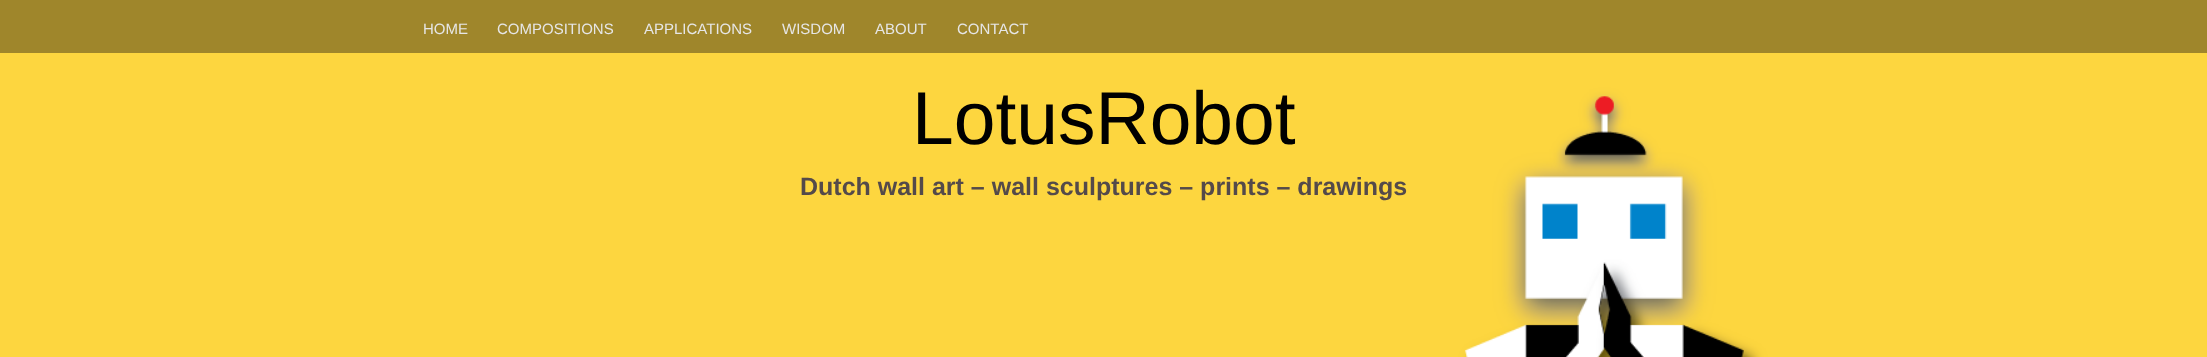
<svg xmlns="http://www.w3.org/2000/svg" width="2207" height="357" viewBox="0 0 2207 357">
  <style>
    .t1 { font: 15px Liberation Sans; fill: #e6e6e6; }
    .t2 { font: 75px Liberation Sans; fill: #000; }
    .t3 { font: bold 25px Liberation Sans; fill: #544a4a; }
  </style>
  <rect width="100%" height="100%" fill="#fff"/>
  <rect x="0" y="0" width="2207" height="53" fill="#9f862b"/>
  <text x="423" y="34" class="t1">HOME</text>
  <text x="497" y="34" class="t1">COMPOSITIONS</text>
  <text x="644" y="34" class="t1">APPLICATIONS</text>
  <text x="782" y="34" class="t1">WISDOM</text>
  <text x="875" y="34" class="t1">ABOUT</text>
  <text x="957" y="34" class="t1">CONTACT</text>
  <image x="0" y="53" width="2207" height="304" href="images/1.png"/>
  <text x="912" y="144" class="t2">LotusRobot</text>
  <text x="800" y="195" class="t3">Dutch wall art – wall sculptures – prints – drawings</text>
</svg>
